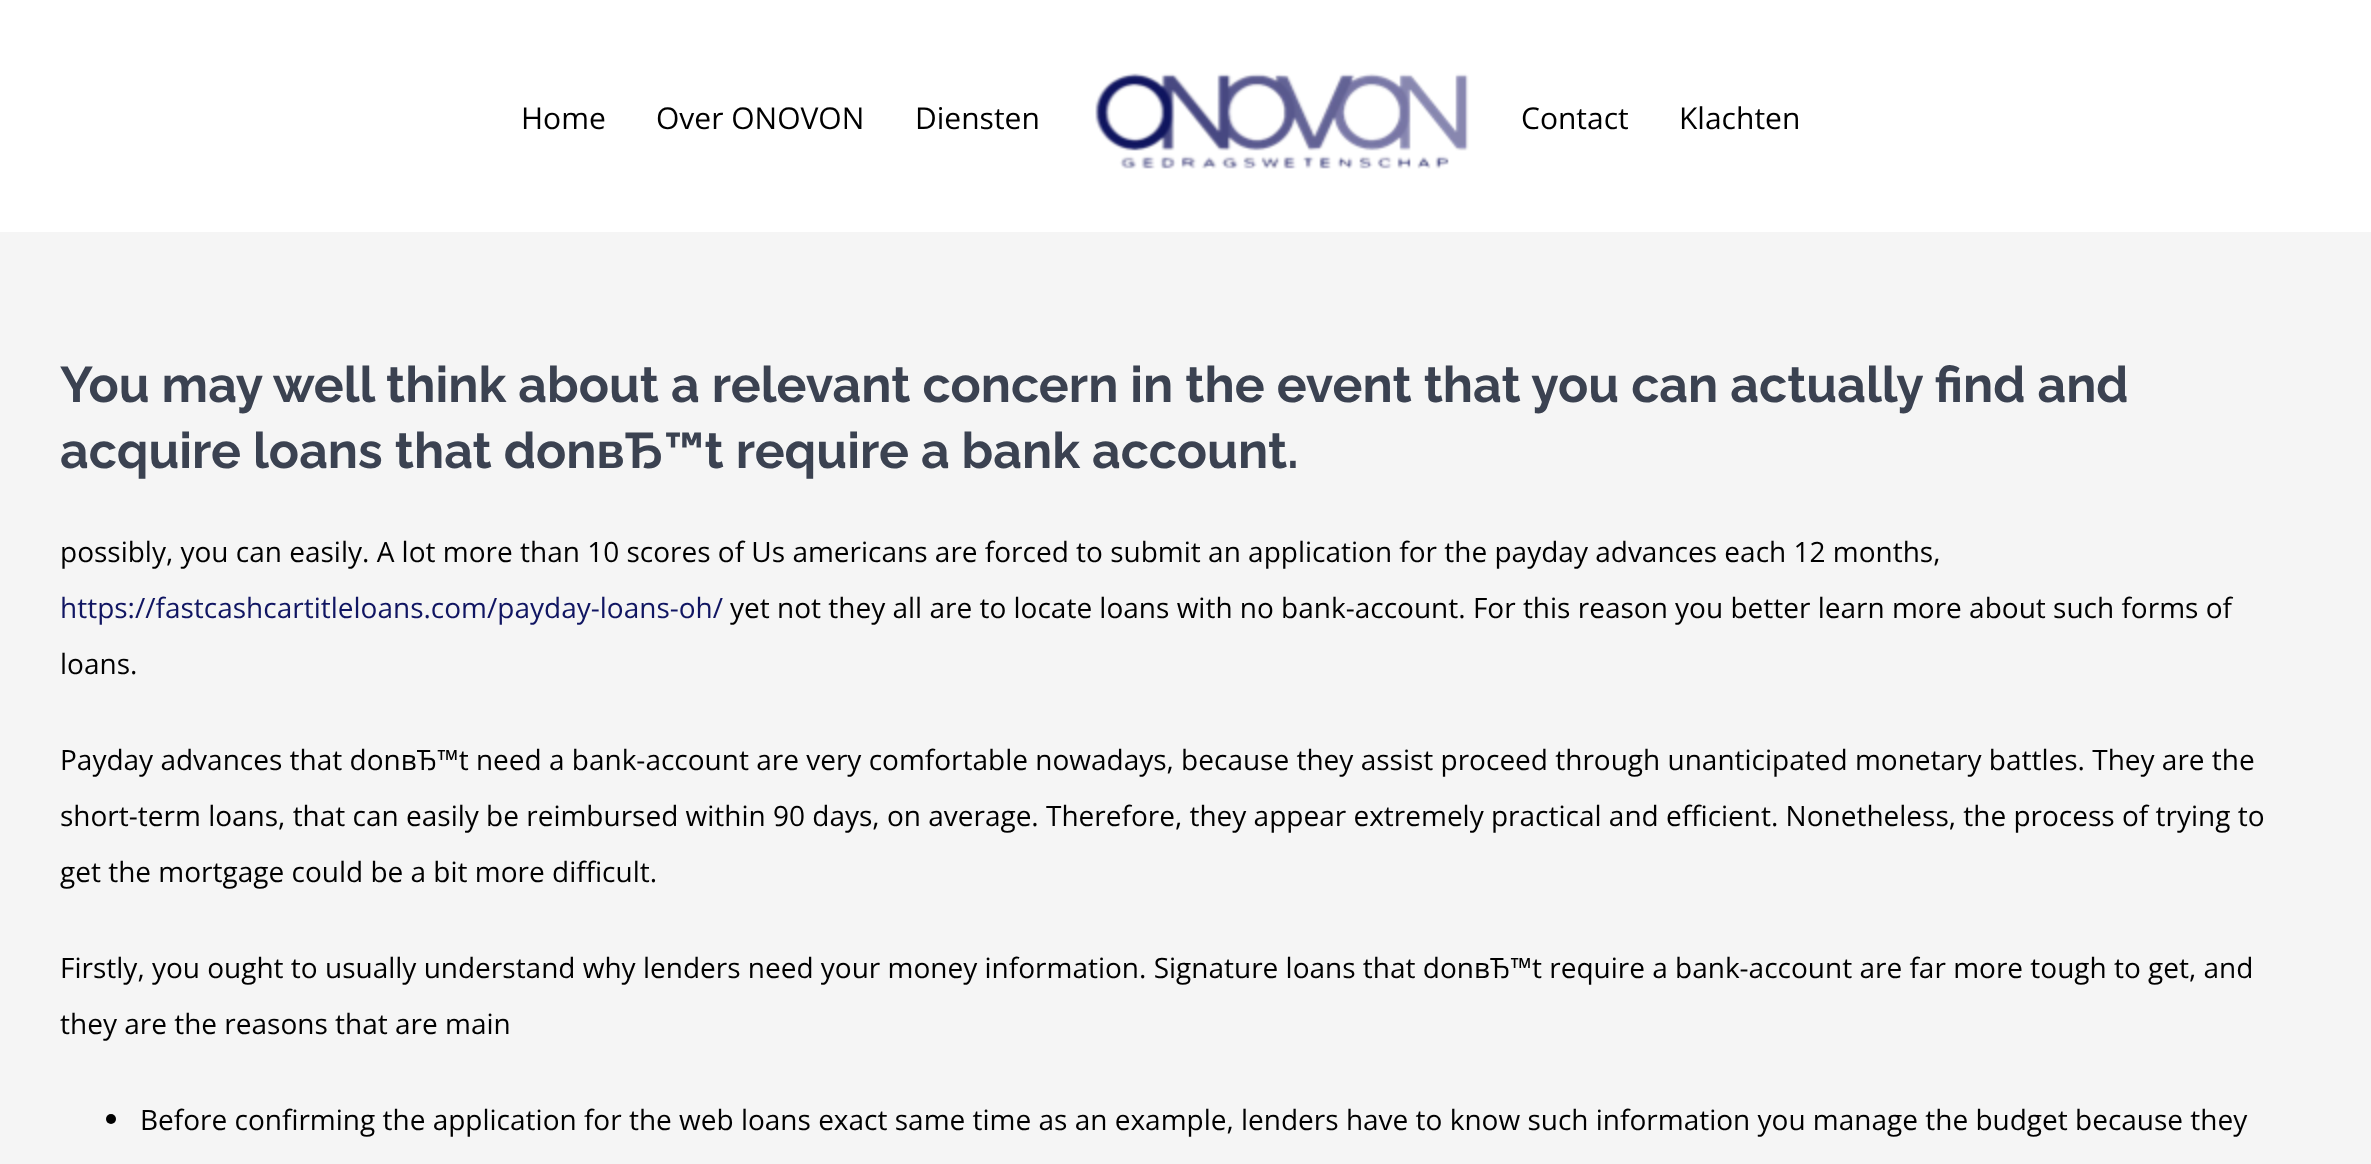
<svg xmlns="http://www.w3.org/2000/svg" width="2371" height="1164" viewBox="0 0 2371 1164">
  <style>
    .t1 { font: 30px Open Sans; fill: #000; }
    .t2 { font: 100 50px Raleway; fill: #3b4251; }
    .t3 { font: 28px Open Sans; fill: #000; }
    .t4 { font: 28px Open Sans; fill: #101562; }
  </style>
  <rect width="100%" height="100%" fill="#f5f5f5"/>
  <rect x="0" y="0" width="2371" height="232" fill="#fff"/>
  <text x="521" y="129" class="t1">Home</text>
  <text x="656" y="129" class="t1">Over ONOVON</text>
  <text x="915" y="129" class="t1">Diensten</text>
  <image x="1095" y="73" width="374" height="96" href="images/1.png"/>
  <text x="1521" y="129" class="t1">Contact</text>
  <text x="1679" y="129" class="t1">Klachten</text>
  <text x="60" y="402" class="t2">You may well think about a relevant concern in the event that you can actually find and</text>
  <text x="60" y="468" class="t2">acquire loans that donвЂ™t require a bank account.</text>
  <text x="60" y="562" class="t3">possibly, you can easily. A lot more than 10 scores of Us americans are forced to submit an application for the payday advances each 12 months,</text>
  <text x="60" y="618" class="t4">https://fastcashcartitleloans.com/payday-loans-oh/</text>
  <text x="730" y="618" class="t3">yet not they all are to locate loans with no bank-account. For this reason you better learn more about such forms of</text>
  <text x="60" y="674" class="t3">loans.</text>
  <text x="60" y="770" class="t3">Payday advances that donвЂ™t need a bank-account are very comfortable nowadays, because they assist proceed through unanticipated monetary battles. They are the</text>
  <text x="60" y="826" class="t3">short-term loans, that can easily be reimbursed within 90 days, on average. Therefore, they appear extremely practical and efficient. Nonetheless, the process of trying to</text>
  <text x="60" y="882" class="t3">get the mortgage could be a bit more difficult.</text>
  <text x="60" y="978" class="t3">Firstly, you ought to usually understand why lenders need your money information. Signature loans that donвЂ™t require a bank-account are far more tough to get, and</text>
  <text x="60" y="1034" class="t3">they are the reasons that are main</text>
  <circle cx="111" cy="1119" r="5" fill="#000"/>
  <text x="140" y="1130" class="t3">Before confirming the application for the web loans exact same time as an example, lenders have to know such information you manage the budget because they</text>
</svg>
